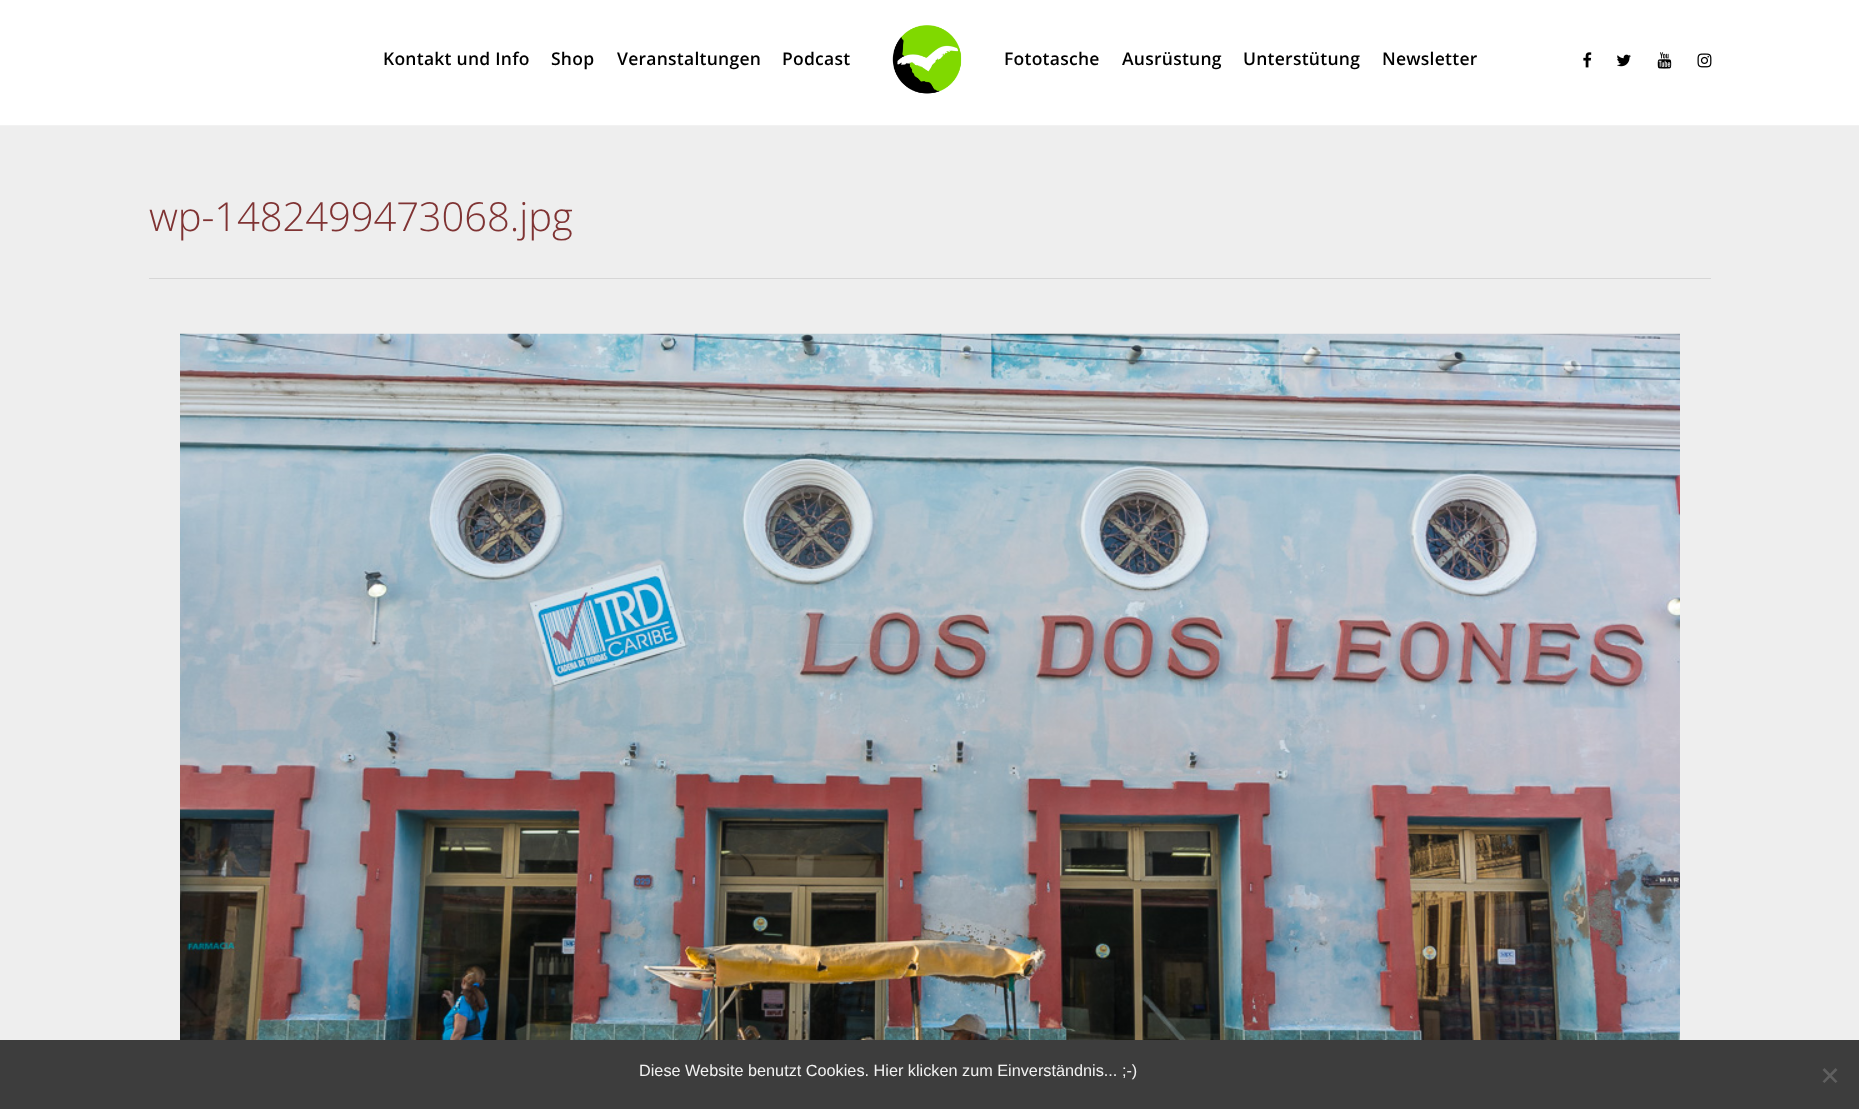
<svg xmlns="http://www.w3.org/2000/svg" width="1859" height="1109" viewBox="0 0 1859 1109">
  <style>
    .t1 { font: 600 17.5px Open Sans; letter-spacing: 0.25px; fill: #000; }
    .t2 { font: 300 40px Open Sans; letter-spacing: -0.1px; fill: #7f3333; }
    .t3 { font: 16.25px Liberation Sans; fill: #f2f2f2; }
  </style>
  <rect width="100%" height="100%" fill="#eee"/>
  <rect x="0" y="0" width="1859" height="125" fill="#fff"/>
  <rect x="0" y="125" width="1859" height="1" fill="#f2f2f2"/>
  <text x="383" y="65" class="t1">Kontakt und Info</text>
  <text x="551" y="65" class="t1">Shop</text>
  <text x="617" y="65" class="t1">Veranstaltungen</text>
  <text x="782" y="65" class="t1">Podcast</text>
  <image x="892" y="25" width="70" height="69" href="images/1.png"/>
  <text x="1004" y="65" class="t1">Fototasche</text>
  <text x="1122" y="65" class="t1">Ausrüstung</text>
  <text x="1243" y="65" class="t1">Unterstütung</text>
  <text x="1382" y="65" class="t1">Newsletter</text>
  <image x="1583" y="52" width="9" height="16" href="images/2.png"/>
  <image x="1617" y="54" width="14" height="13" href="images/3.png"/>
  <image x="1657" y="52" width="15" height="17" href="images/4.png"/>
  <image x="1697" y="53" width="15" height="15" href="images/5.png"/>
  <rect x="149" y="278" width="1562" height="1" fill="#d6d6d6"/>
  <text x="149" y="231" class="t2">wp-1482499473068.jpg</text>
  <image x="180" y="333" width="1500" height="707" href="images/6.png"/>
  <rect x="0" y="1040" width="1859" height="69" fill="#3d3d3d"/>
  <text x="639" y="1076" class="t3">Diese Website benutzt Cookies. Hier klicken zum Einverständnis... ;-)</text>
  <path d="M1835.5 1068L1837.5 1070L1824.5 1083L1822.5 1081.5Z" fill="#5f5f5f"/>
  <path d="M1822.5 1070L1824.5 1068L1837.5 1081.5L1835.5 1083Z" fill="#5f5f5f"/>
</svg>
